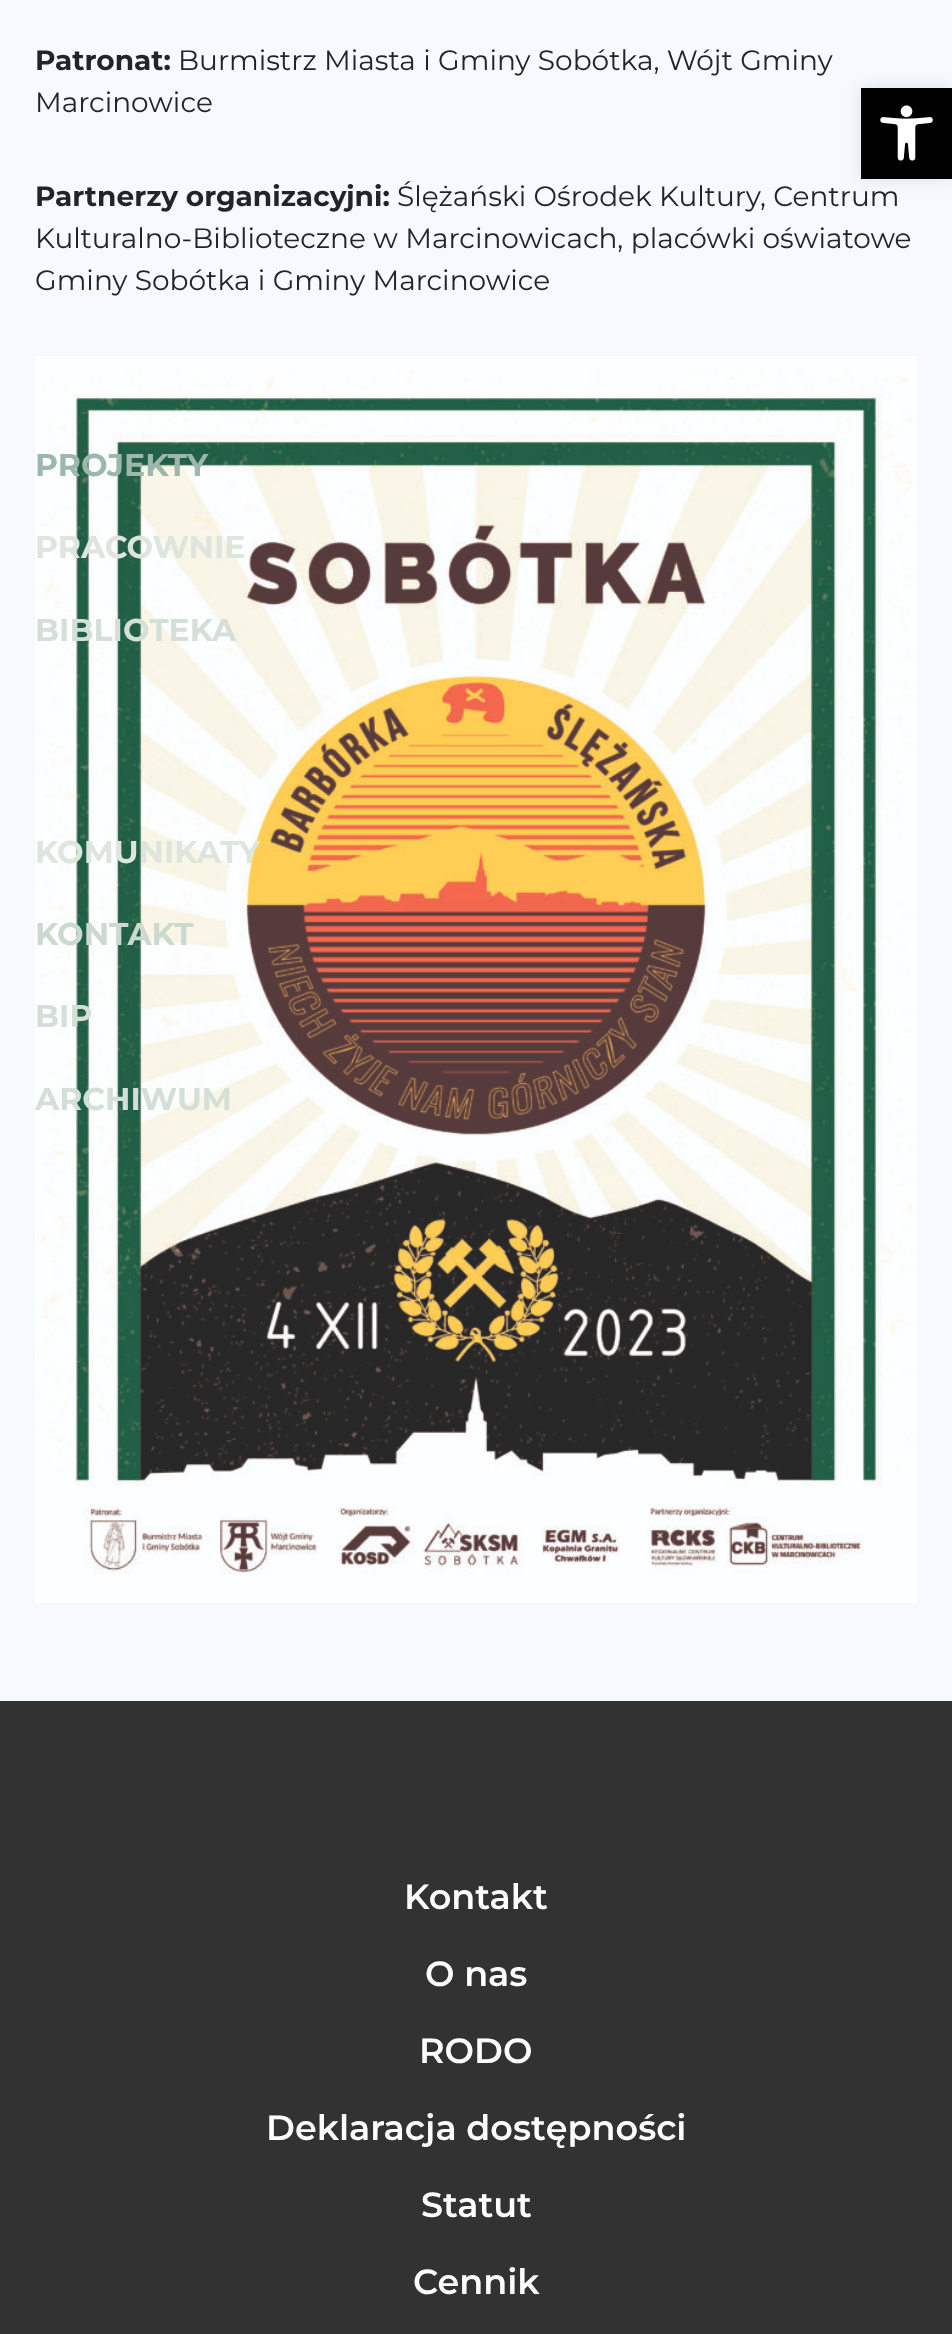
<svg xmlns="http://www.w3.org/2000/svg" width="952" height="2334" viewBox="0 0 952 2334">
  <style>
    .t1 { font: bold 28px Montserrat; fill: #212529; }
    .t2 { font: 28px Montserrat; fill: #212529; }
    .t3 { font: bold 31.5px Montserrat; fill: #9cb7ab; }
    .t4 { font: bold 31.5px Montserrat; fill: #dde5dd; }
    .t5 { font: bold 31.5px Montserrat; fill: #d4dfd8; }
    .t6 { font: bold 31.5px Montserrat; fill: #ccd9cf; }
    .t7 { font: 600 35px Montserrat; fill: #fff; }
  </style>
  <rect width="100%" height="100%" fill="#323232"/>
  <rect x="0" y="0" width="952" height="1701" fill="#f6f9fe"/>
  <text x="35" y="70" class="t1">Patronat:</text>
  <text x="178" y="70" class="t2">Burmistrz Miasta i Gminy Sobótka, Wójt Gminy</text>
  <text x="35" y="112" class="t2">Marcinowice</text>
  <text x="35" y="206" class="t1">Partnerzy organizacyjni:</text>
  <text x="397" y="206" class="t2">Ślężański Ośrodek Kultury, Centrum</text>
  <text x="35" y="248" class="t2">Kulturalno-Biblioteczne w Marcinowicach, placówki oświatowe</text>
  <text x="35" y="290" class="t2">Gminy Sobótka i Gminy Marcinowice</text>
  <image x="35" y="356" width="882" height="1247" href="images/1.png"/>
  <text x="35" y="476" class="t3">PROJEKTY</text>
  <text x="35" y="558" class="t4">PRACOWNIE</text>
  <text x="35" y="641" class="t5">BIBLIOTEKA</text>
  <text x="35" y="863" class="t4">KOMUNIKATY</text>
  <text x="35" y="945" class="t6">KONTAKT</text>
  <text x="35" y="1027" class="t5">BIP</text>
  <text x="35" y="1110" class="t5">ARCHIWUM</text>
  <text x="404" y="1909" class="t7">Kontakt</text>
  <text x="425" y="1986" class="t7">O nas</text>
  <text x="419" y="2063" class="t7">RODO</text>
  <text x="266" y="2140" class="t7">Deklaracja dostępności</text>
  <text x="421" y="2217" class="t7">Statut</text>
  <text x="413" y="2294" class="t7">Cennik</text>
  <rect x="861" y="88" width="91" height="91" fill="#0000001a" filter="blur(9px)"/>
  <rect x="861" y="88" width="91" height="91" fill="#000"/>
  <image x="880" y="105" width="53" height="56" href="images/2.png"/>
</svg>
